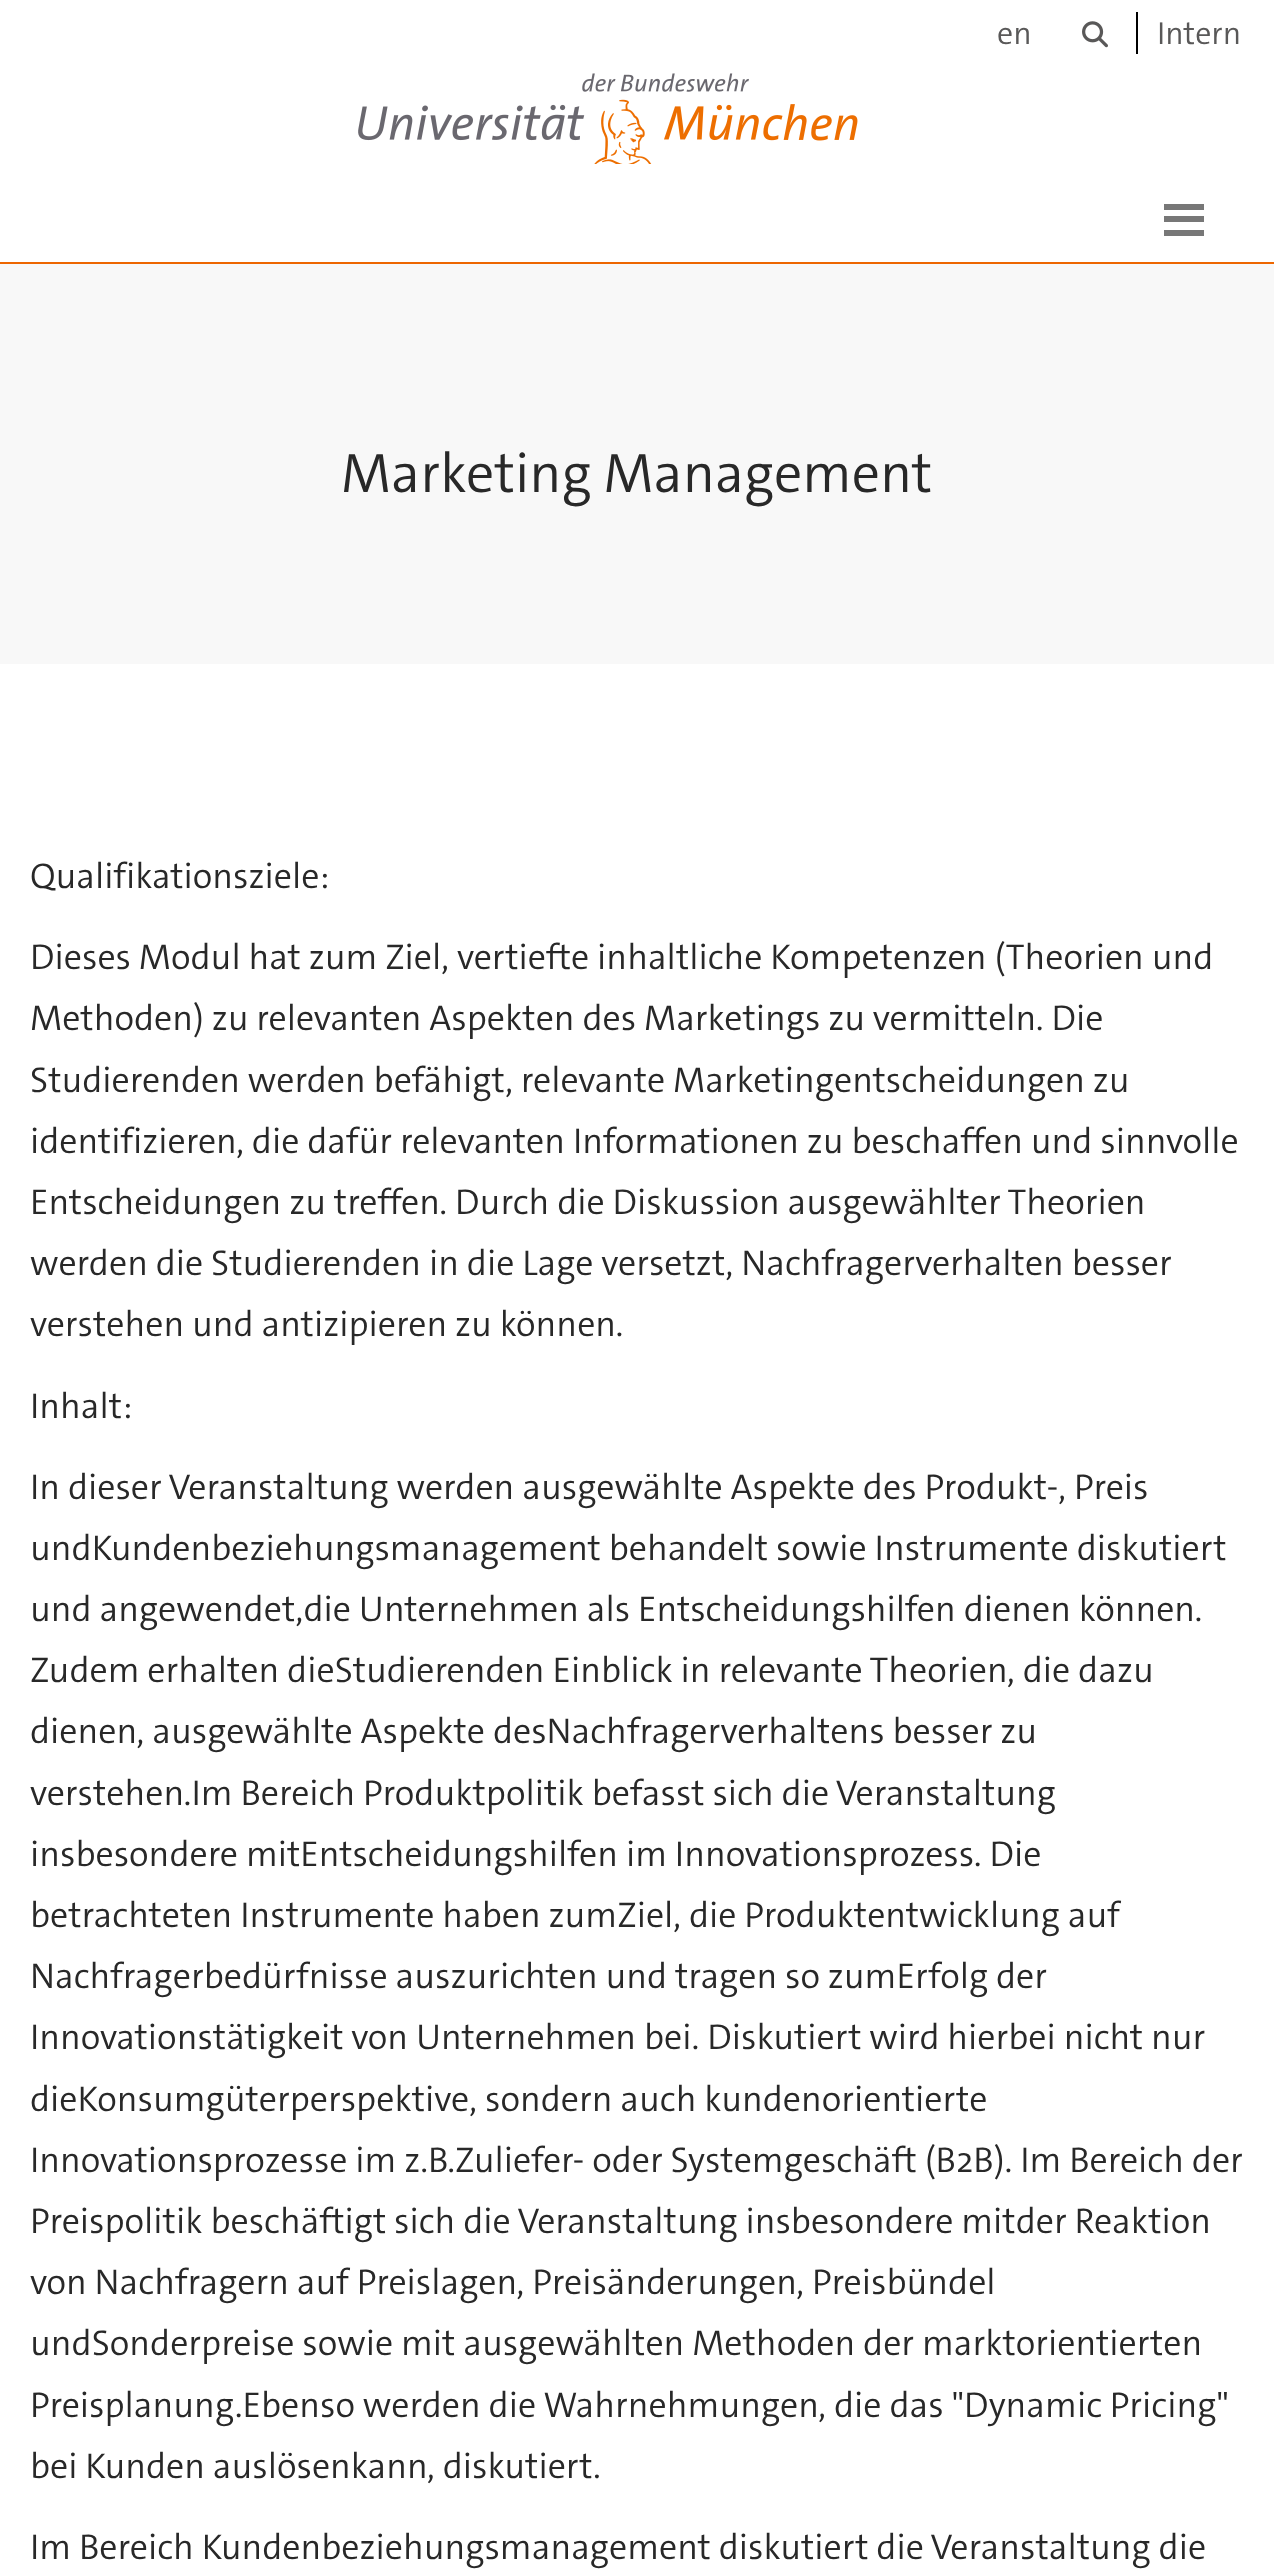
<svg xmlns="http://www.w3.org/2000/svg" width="1274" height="2575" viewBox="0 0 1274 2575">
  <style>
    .t1 { font: 300 32px 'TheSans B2'; fill: #595858; }
    .t2 { font: 300 56px 'TheSans B2'; fill: #282828; }
    .t3 { font: 300 36px 'TheSans B2'; fill: #282828; }
  </style>
  <rect width="100%" height="100%" fill="#fff"/>
  <rect x="0" y="262" width="1274" height="2" fill="#ed6600"/>
  <text x="997" y="44" class="t1">en</text>
  <image x="1082" y="21" width="26" height="27" href="images/1.png"/>
  <text x="1157" y="44" class="t1">Intern</text>
  <rect x="1136" y="12" width="2" height="42" fill="#000"/>
  <image x="594" y="99" width="58" height="65" href="images/2.png"/>
  <image x="358" y="73" width="500" height="68" href="images/3.png"/>
  <rect x="1164" y="204" width="40" height="6" fill="#777"/>
  <rect x="1164" y="216" width="40" height="6" fill="#777"/>
  <rect x="1164" y="230" width="40" height="6" fill="#777"/>
  <rect x="0" y="264" width="1274" height="400" fill="#f8f8f8"/>
  <text x="341" y="492" class="t2">Marketing Management</text>
  <text x="30" y="888" class="t3">Qualifikationsziele:</text>
  <text x="30" y="969" class="t3">Dieses Modul hat zum Ziel, vertiefte inhaltliche Kompetenzen (Theorien und</text>
  <text x="30" y="1030" class="t3">Methoden) zu relevanten Aspekten des Marketings zu vermitteln. Die</text>
  <text x="30" y="1092" class="t3">Studierenden werden befähigt, relevante Marketingentscheidungen zu</text>
  <text x="30" y="1153" class="t3">identifizieren, die dafür relevanten Informationen zu beschaffen und sinnvolle</text>
  <text x="30" y="1214" class="t3">Entscheidungen zu treffen. Durch die Diskussion ausgewählter Theorien</text>
  <text x="30" y="1275" class="t3">werden die Studierenden in die Lage versetzt, Nachfragerverhalten besser</text>
  <text x="30" y="1336" class="t3">verstehen und antizipieren zu können.</text>
  <text x="30" y="1418" class="t3">Inhalt:</text>
  <text x="30" y="1499" class="t3">In dieser Veranstaltung werden ausgewählte Aspekte des Produkt-, Preis</text>
  <text x="30" y="1560" class="t3">undKundenbeziehungsmanagement behandelt sowie Instrumente diskutiert</text>
  <text x="30" y="1621" class="t3">und angewendet,die Unternehmen als Entscheidungshilfen dienen können.</text>
  <text x="30" y="1682" class="t3">Zudem erhalten dieStudierenden Einblick in relevante Theorien, die dazu</text>
  <text x="30" y="1743" class="t3">dienen, ausgewählte Aspekte desNachfragerverhaltens besser zu</text>
  <text x="30" y="1805" class="t3">verstehen.Im Bereich Produktpolitik befasst sich die Veranstaltung</text>
  <text x="30" y="1866" class="t3">insbesondere mitEntscheidungshilfen im Innovationsprozess. Die</text>
  <text x="30" y="1927" class="t3">betrachteten Instrumente haben zumZiel, die Produktentwicklung auf</text>
  <text x="30" y="1988" class="t3">Nachfragerbedürfnisse auszurichten und tragen so zumErfolg der</text>
  <text x="30" y="2049" class="t3">Innovationstätigkeit von Unternehmen bei. Diskutiert wird hierbei nicht nur</text>
  <text x="30" y="2111" class="t3">dieKonsumgüterperspektive, sondern auch kundenorientierte</text>
  <text x="30" y="2172" class="t3">Innovationsprozesse im z.B.Zuliefer- oder Systemgeschäft (B2B). Im Bereich der</text>
  <text x="30" y="2233" class="t3">Preispolitik beschäftigt sich die Veranstaltung insbesondere mitder Reaktion</text>
  <text x="30" y="2294" class="t3">von Nachfragern auf Preislagen, Preisänderungen, Preisbündel</text>
  <text x="30" y="2355" class="t3">undSonderpreise sowie mit ausgewählten Methoden der marktorientierten</text>
  <text x="30" y="2417" class="t3">Preisplanung.Ebenso werden die Wahrnehmungen, die das "Dynamic Pricing"</text>
  <text x="30" y="2478" class="t3">bei Kunden auslösenkann, diskutiert.</text>
  <text x="30" y="2559" class="t3">Im Bereich Kundenbeziehungsmanagement diskutiert die Veranstaltung die</text>
</svg>
